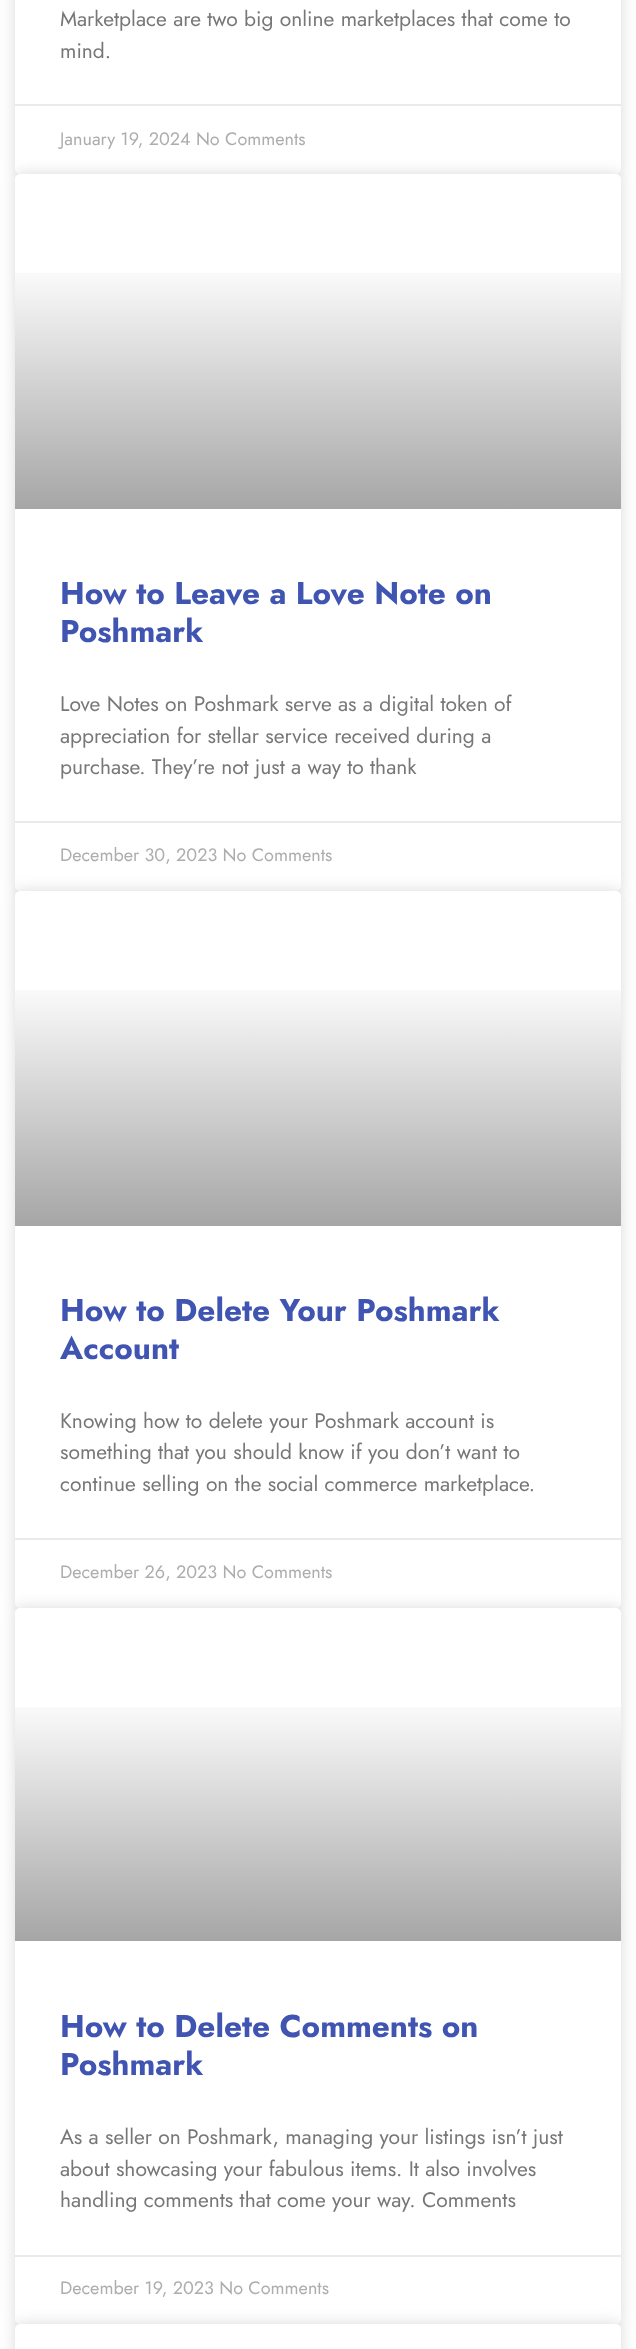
<svg xmlns="http://www.w3.org/2000/svg" width="636" height="2349" viewBox="0 0 636 2349">
  <style>
    .t1 { font: 21px Jost; fill: #777; }
    .t2 { font: 18px Jost; fill: #adadad; }
    .t3 { font: bold 31.5px Jost; fill: #4054b2; }
  </style>
  <defs>
    <linearGradient id="g1" gradientUnits="userSpaceOnUse" x1="318" y1="509" x2="318" y2="174"><stop offset="0" stop-color="#000" stop-opacity="0.35"/><stop offset="0.75" stop-color="#000" stop-opacity="0"/></linearGradient>
    <linearGradient id="g2" gradientUnits="userSpaceOnUse" x1="318" y1="1226" x2="318" y2="891"><stop offset="0" stop-color="#000" stop-opacity="0.35"/><stop offset="0.75" stop-color="#000" stop-opacity="0"/></linearGradient>
    <linearGradient id="g3" gradientUnits="userSpaceOnUse" x1="318" y1="1941" x2="318" y2="1608"><stop offset="0" stop-color="#000" stop-opacity="0.35"/><stop offset="0.75" stop-color="#000" stop-opacity="0"/></linearGradient>
  </defs>
  <rect width="100%" height="100%" fill="#fff"/>
  <rect x="15" y="-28" width="606" height="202" rx="5" fill="#00000026" filter="blur(7.5px)"/>
  <rect x="15" y="-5" width="606" height="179" rx="5" fill="#fff"/>
  <text x="60" y="26" class="t1">Marketplace are two big online marketplaces that come to</text>
  <text x="60" y="58" class="t1">mind.</text>
  <rect x="15" y="104" width="606" height="2" fill="#eaeaea"/>
  <text x="60" y="145" class="t2">January 19, 2024 No Comments</text>
  <rect x="15" y="174" width="606" height="717" rx="5" fill="#00000026" filter="blur(7.5px)"/>
  <rect x="15" y="174" width="606" height="717" rx="5" fill="#fff"/>
  <rect x="15" y="273" width="606" height="236" fill="url(#g1)"/>
  <text x="60" y="604" class="t3">How to Leave a Love Note on</text>
  <text x="60" y="642" class="t3">Poshmark</text>
  <text x="60" y="711" class="t1">Love Notes on Poshmark serve as a digital token of</text>
  <text x="60" y="743" class="t1">appreciation for stellar service received during a</text>
  <text x="60" y="774" class="t1">purchase. They’re not just a way to thank</text>
  <rect x="15" y="821" width="606" height="2" fill="#eaeaea"/>
  <text x="60" y="861" class="t2">December 30, 2023 No Comments</text>
  <rect x="15" y="891" width="606" height="717" rx="5" fill="#00000026" filter="blur(7.5px)"/>
  <rect x="15" y="891" width="606" height="717" rx="5" fill="#fff"/>
  <rect x="15" y="990" width="606" height="236" fill="url(#g2)"/>
  <text x="60" y="1321" class="t3">How to Delete Your Poshmark</text>
  <text x="60" y="1359" class="t3">Account</text>
  <text x="60" y="1428" class="t1">Knowing how to delete your Poshmark account is</text>
  <text x="60" y="1459" class="t1">something that you should know if you don’t want to</text>
  <text x="60" y="1491" class="t1">continue selling on the social commerce marketplace.</text>
  <rect x="15" y="1538" width="606" height="2" fill="#eaeaea"/>
  <text x="60" y="1578" class="t2">December 26, 2023 No Comments</text>
  <rect x="15" y="1608" width="606" height="716" rx="5" fill="#00000026" filter="blur(7.5px)"/>
  <rect x="15" y="1608" width="606" height="716" rx="5" fill="#fff"/>
  <rect x="15" y="1707" width="606" height="234" fill="url(#g3)"/>
  <text x="60" y="2037" class="t3">How to Delete Comments on</text>
  <text x="60" y="2075" class="t3">Poshmark</text>
  <text x="60" y="2144" class="t1">As a seller on Poshmark, managing your listings isn’t just</text>
  <text x="60" y="2176" class="t1">about showcasing your fabulous items. It also involves</text>
  <text x="60" y="2207" class="t1">handling comments that come your way. Comments</text>
  <rect x="15" y="2255" width="606" height="2" fill="#eaeaea"/>
  <text x="60" y="2294" class="t2">December 19, 2023 No Comments</text>
  <rect x="15" y="2324" width="606" height="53" rx="5" fill="#00000026" filter="blur(7.5px)"/>
  <rect x="15" y="2324" width="606" height="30" rx="5" fill="#fff"/>
</svg>
